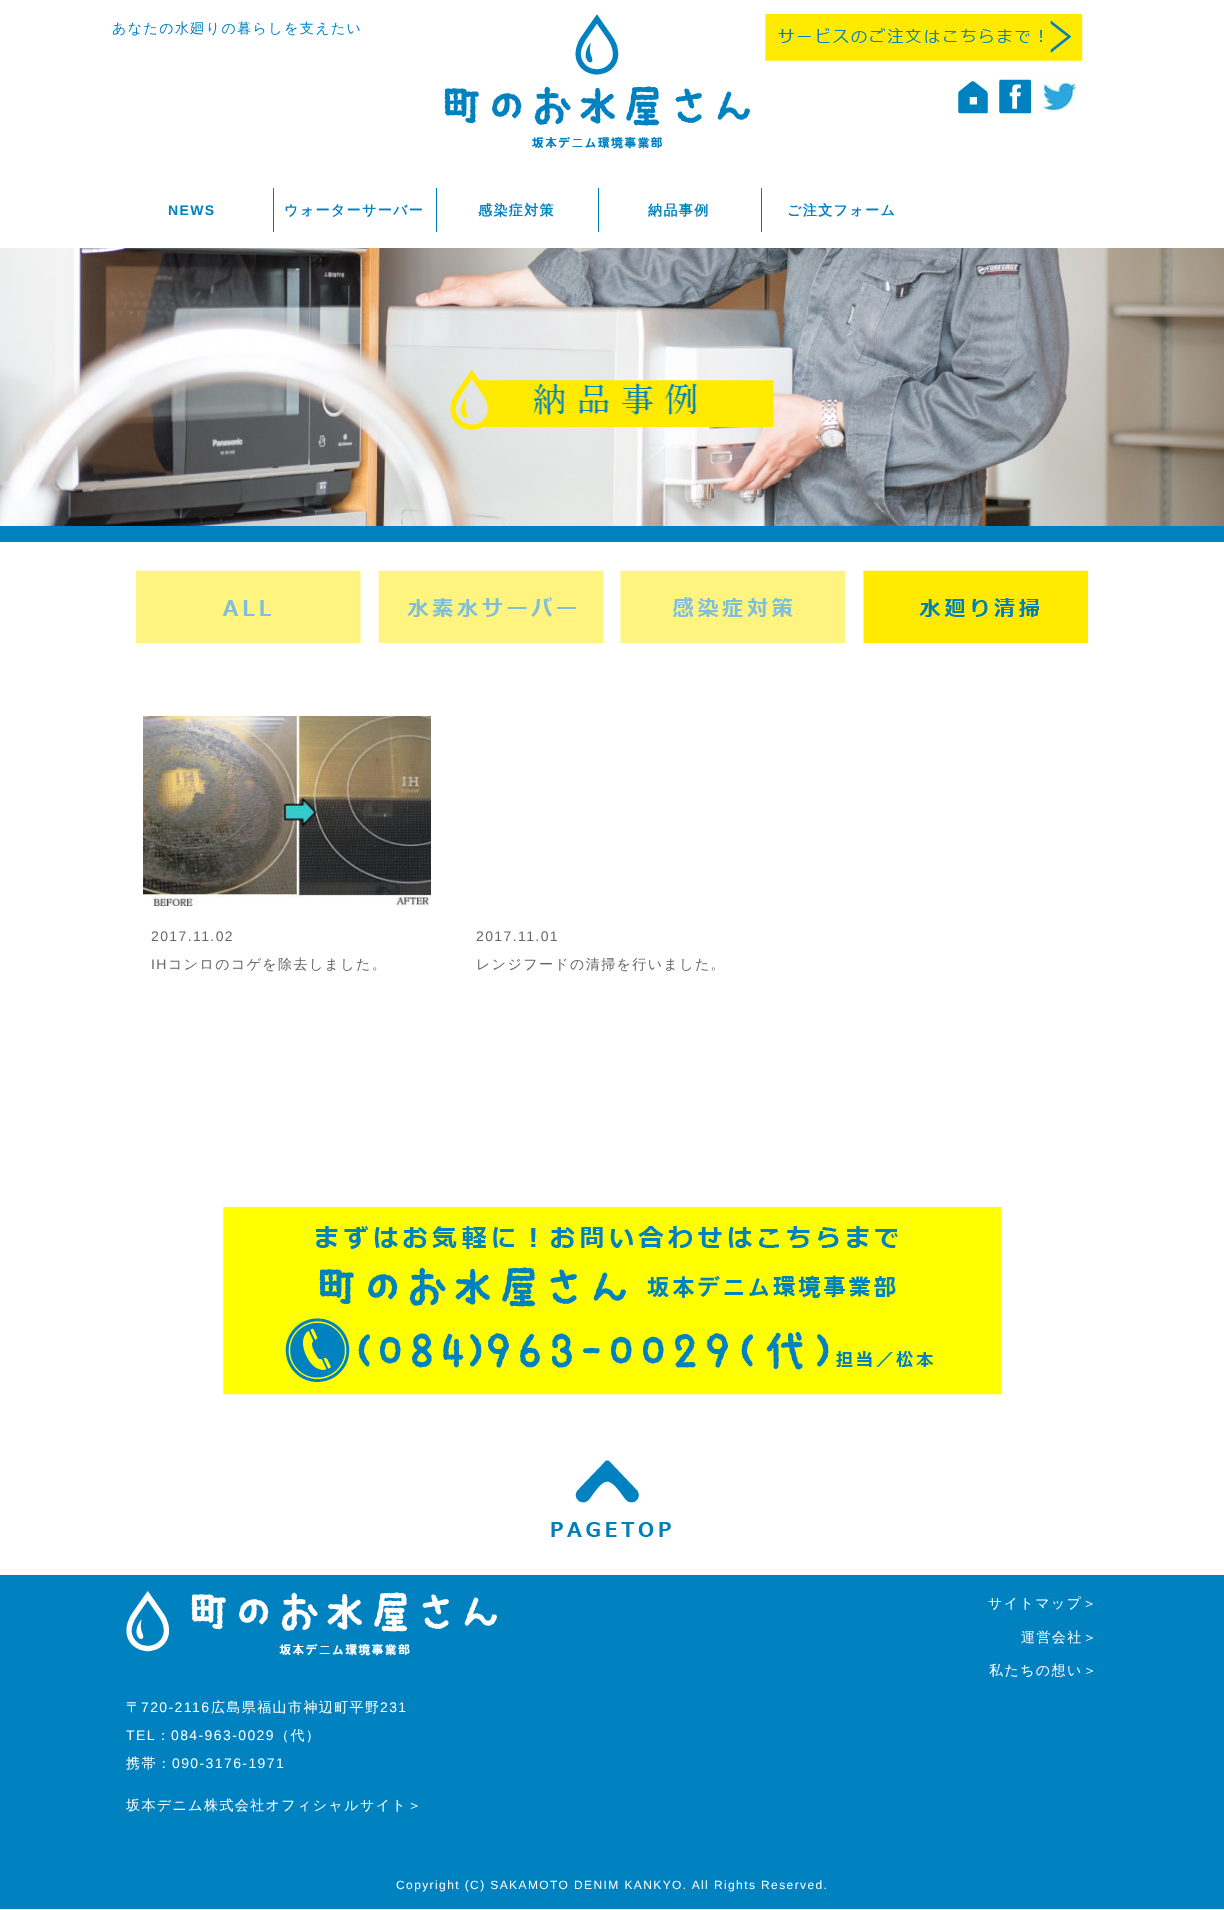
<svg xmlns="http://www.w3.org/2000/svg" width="1224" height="1910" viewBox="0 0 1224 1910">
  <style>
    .t1 { font: 500 14px WenQuanYi Zen Hei; letter-spacing: 1.4px; fill: #0082c1; }
    .t2 { font: bold 14px Liberation Sans; letter-spacing: 1.4px; fill: #0082c1; }
    .t3 { font: bold 14px WenQuanYi Zen Hei; letter-spacing: 1.4px; fill: #0082c1; }
    .t4 { font: 14px Liberation Sans; letter-spacing: 1.4px; fill: #666; }
    .t5 { font: 500 14px WenQuanYi Zen Hei; letter-spacing: 1.4px; fill: #666; }
    .t6 { font: 500 14px WenQuanYi Zen Hei; letter-spacing: 1.4px; fill: #fff; }
    .t7 { font: 14px Liberation Sans; letter-spacing: 1.4px; fill: #fff; }
    .t8 { font: 12px Liberation Sans; letter-spacing: 1.4px; fill: #fff; }
  </style>
  <rect width="100%" height="100%" fill="#fff"/>
  <text x="112" y="33" class="t1">あなたの水廻りの暮らしを支えたい</text>
  <image x="444" y="14" width="306" height="135" href="images/1.png"/>
  <image x="765" y="14" width="318" height="47" href="images/2.png"/>
  <image x="958" y="81" width="30" height="33" href="images/3.png"/>
  <image x="999" y="79" width="32" height="35" href="images/4.png"/>
  <image x="1042" y="78" width="35" height="34" href="images/5.png"/>
  <text x="168" y="215" class="t2">NEWS</text>
  <rect x="273" y="188" width="1" height="44" fill="#0080b9"/>
  <text x="284" y="215" class="t3">ウォーターサーバー</text>
  <rect x="436" y="188" width="1" height="44" fill="#0080b9"/>
  <text x="478" y="215" class="t3">感染症対策</text>
  <rect x="598" y="188" width="1" height="44" fill="#0080b9"/>
  <text x="648" y="215" class="t3">納品事例</text>
  <rect x="761" y="188" width="1" height="44" fill="#0080b9"/>
  <text x="787" y="215" class="t3">ご注文フォーム</text>
  <image x="0" y="248" width="1224" height="278" href="images/6.png"/>
  <image x="450" y="369" width="324" height="61" href="images/7.png"/>
  <rect x="0" y="526" width="1224" height="16" fill="#0082c1"/>
  <image x="136" y="570" width="225" height="73" href="images/8.png"/>
  <image x="378" y="570" width="226" height="73" href="images/9.png"/>
  <image x="620" y="570" width="226" height="73" href="images/10.png"/>
  <image x="863" y="570" width="225" height="73" href="images/11.png"/>
  <image x="143" y="716" width="288" height="190" href="images/12.png"/>
  <text x="151" y="941" class="t4">2017.11.02</text>
  <text x="151" y="969" class="t4">IH</text>
  <text x="168" y="969" class="t5">コンロのコゲを除去しました。</text>
  <text x="476" y="941" class="t4">2017.11.01</text>
  <text x="476" y="969" class="t5">レンジフードの清掃を行いました。</text>
  <image x="223" y="1207" width="779" height="188" href="images/13.png"/>
  <image x="551" y="1460" width="120" height="77" href="images/14.png"/>
  <rect x="0" y="1575" width="1224" height="334" fill="#0082c1"/>
  <text x="988" y="1608" class="t6">サイトマップ＞</text>
  <text x="1021" y="1642" class="t6">運営会社＞</text>
  <text x="989" y="1675" class="t6">私たちの想い＞</text>
  <image x="126" y="1591" width="371" height="65" href="images/15.png"/>
  <text x="126" y="1712" class="t6">〒</text>
  <text x="141" y="1712" class="t7">720-2116</text>
  <text x="211" y="1712" class="t6">広島県福山市神辺町平野</text>
  <text x="380" y="1712" class="t7">231</text>
  <text x="126" y="1740" class="t7">TEL</text>
  <text x="156" y="1740" class="t6">：</text>
  <text x="171" y="1740" class="t7">084-963-0029</text>
  <text x="275" y="1740" class="t6">（代）</text>
  <text x="126" y="1768" class="t6">携帯：</text>
  <text x="172" y="1768" class="t7">090-3176-1971</text>
  <text x="126" y="1810" class="t6">坂本デニム株式会社オフィシャルサイト＞</text>
  <text x="396" y="1889" class="t8">Copyright (C) SAKAMOTO DENIM KANKYO. All Rights Reserved.</text>
</svg>
